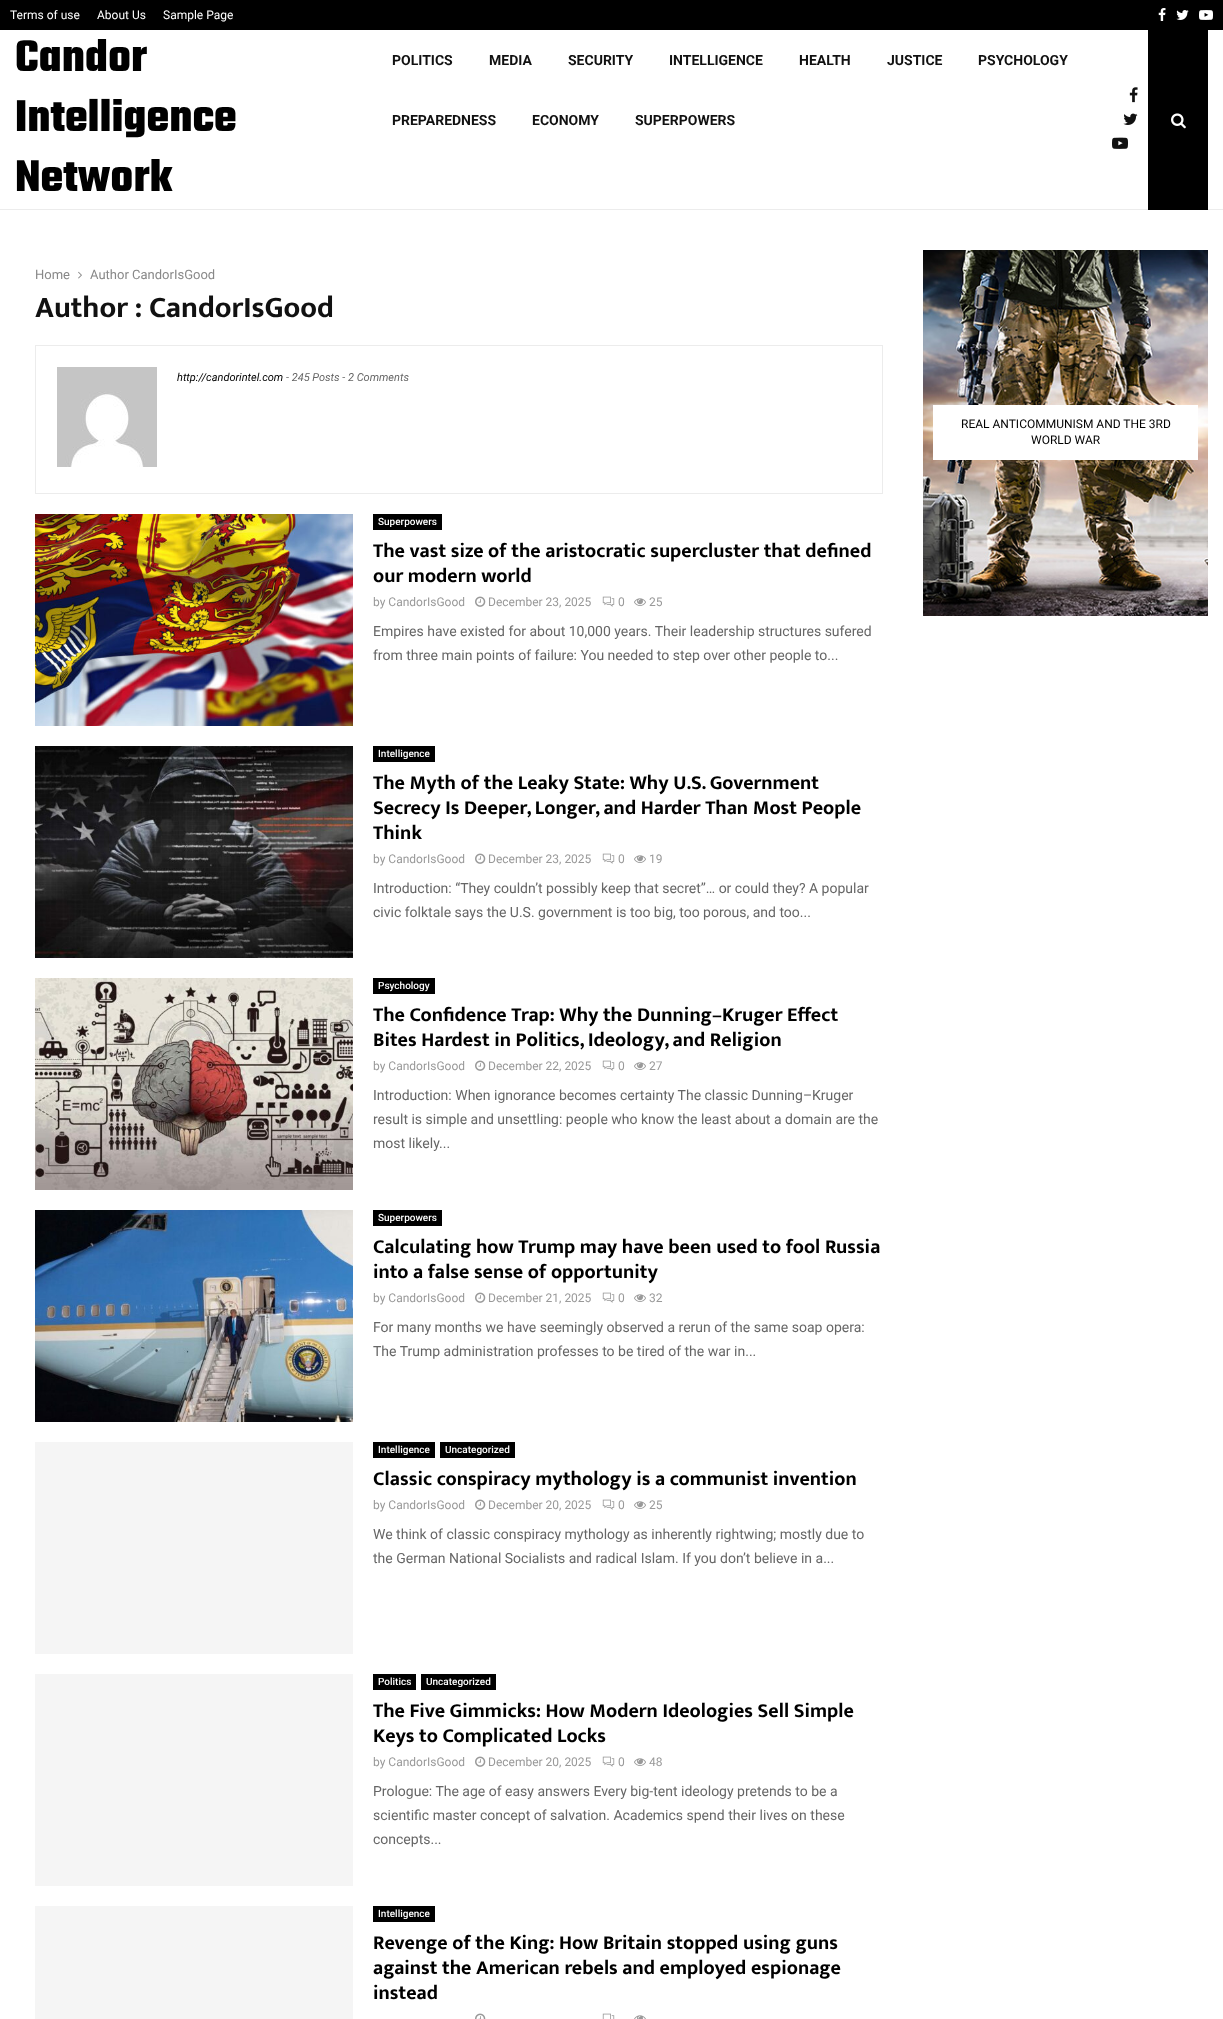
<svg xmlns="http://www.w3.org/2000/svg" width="1223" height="2019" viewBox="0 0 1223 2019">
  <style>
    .t1 { font: 12px Roboto; fill: #fff; }
    .t2 { font: bold 48px Teko; fill: #000; }
    .t3 { font: bold 14px Roboto; fill: #111; }
    .t4 { font: 13px Roboto; fill: #888; }
    .t5 { font: bold 30px Mukta Vaani; fill: #111; }
    .t6 { font: italic 11px Roboto; fill: #000; }
    .t7 { font: italic 11px Roboto; fill: #666; }
    .t8 { font: 500 10px Roboto; fill: #fff; }
    .t9 { font: bold 20px Mukta Vaani; fill: #000; }
    .t10 { font: 12px Roboto; fill: #999; }
    .t11 { font: 14px Roboto; fill: #666; }
    .t12 { font: 12px Roboto; fill: #000; }
  </style>
  <rect width="100%" height="100%" fill="#fff"/>
  <rect x="0" y="0" width="1223" height="30" fill="#000"/>
  <text x="10" y="19" class="t1">Terms of use</text>
  <text x="97" y="19" class="t1">About Us</text>
  <text x="163" y="19" class="t1">Sample Page</text>
  <image x="1158" y="8" width="8" height="13" href="images/1.png"/>
  <image x="1176" y="10" width="13" height="10" href="images/2.png"/>
  <image x="1199" y="10" width="14" height="10" href="images/3.png"/>
  <rect x="0" y="209" width="1223" height="1" fill="#ececec"/>
  <text x="15" y="71" class="t2">Candor</text>
  <text x="15" y="131" class="t2">Intelligence</text>
  <text x="15" y="191" class="t2">Network</text>
  <text x="392" y="65" class="t3">POLITICS</text>
  <text x="489" y="65" class="t3">MEDIA</text>
  <text x="568" y="65" class="t3">SECURITY</text>
  <text x="669" y="65" class="t3">INTELLIGENCE</text>
  <text x="799" y="65" class="t3">HEALTH</text>
  <text x="887" y="65" class="t3">JUSTICE</text>
  <text x="978" y="65" class="t3">PSYCHOLOGY</text>
  <text x="392" y="125" class="t3">PREPAREDNESS</text>
  <text x="532" y="125" class="t3">ECONOMY</text>
  <text x="635" y="125" class="t3">SUPERPOWERS</text>
  <image x="1129" y="87" width="9" height="16" href="images/4.png"/>
  <image x="1123" y="113" width="15" height="12" href="images/5.png"/>
  <image x="1112" y="137" width="16" height="12" href="images/6.png"/>
  <rect x="1148" y="30" width="60" height="180" fill="#000"/>
  <image x="1171" y="113" width="15" height="16" href="images/7.png"/>
  <text x="35" y="279" class="t4">Home</text>
  <image x="78" y="271" width="4" height="8" href="images/8.png"/>
  <text x="90" y="279" class="t4">Author CandorIsGood</text>
  <text x="35" y="317" class="t5">Author : CandorIsGood</text>
  <rect x="35.5" y="345.5" width="847" height="148" fill="none" stroke="#ececec"/>
  <image x="57" y="367" width="100" height="100" href="images/9.png"/>
  <text x="177" y="381" class="t6">http://candorintel.com</text>
  <text x="286" y="381" class="t7">- 245 Posts - 2 Comments</text>
  <image x="35" y="514" width="318" height="212" href="images/10.png"/>
  <rect x="373" y="514" width="69" height="16" fill="#000"/>
  <text x="378" y="525" class="t8">Superpowers</text>
  <text x="373" y="557" class="t9">The vast size of the aristocratic supercluster that defined</text>
  <text x="373" y="582" class="t9">our modern world</text>
  <text x="373" y="606" class="t10">by CandorIsGood</text>
  <image x="475" y="596" width="11" height="11" href="images/11.png"/>
  <text x="488" y="606" class="t10">December 23, 2025</text>
  <image x="602" y="596" width="13" height="11" href="images/12.png"/>
  <text x="618" y="606" class="t10">0</text>
  <image x="634" y="598" width="12" height="8" href="images/13.png"/>
  <text x="649" y="606" class="t10">25</text>
  <text x="373" y="636" class="t11">Empires have existed for about 10,000 years. Their leadership structures sufered</text>
  <text x="373" y="660" class="t11">from three main points of failure: You needed to step over other people to...</text>
  <image x="35" y="746" width="318" height="212" href="images/14.png"/>
  <rect x="373" y="746" width="62" height="16" fill="#000"/>
  <text x="378" y="757" class="t8">Intelligence</text>
  <text x="373" y="789" class="t9">The Myth of the Leaky State: Why U.S. Government</text>
  <text x="373" y="814" class="t9">Secrecy Is Deeper, Longer, and Harder Than Most People</text>
  <text x="373" y="839" class="t9">Think</text>
  <text x="373" y="863" class="t10">by CandorIsGood</text>
  <image x="475" y="853" width="11" height="11" href="images/11.png"/>
  <text x="488" y="863" class="t10">December 23, 2025</text>
  <image x="602" y="853" width="13" height="11" href="images/12.png"/>
  <text x="618" y="863" class="t10">0</text>
  <image x="634" y="855" width="12" height="8" href="images/13.png"/>
  <text x="649" y="863" class="t10">19</text>
  <text x="373" y="893" class="t11">Introduction: “They couldn’t possibly keep that secret”… or could they? A popular</text>
  <text x="373" y="917" class="t11">civic folktale says the U.S. government is too big, too porous, and too...</text>
  <image x="35" y="978" width="318" height="212" href="images/15.png"/>
  <rect x="373" y="978" width="62" height="16" fill="#000"/>
  <text x="378" y="989" class="t8">Psychology</text>
  <text x="373" y="1021" class="t9">The Confidence Trap: Why the Dunning–Kruger Effect</text>
  <text x="373" y="1046" class="t9">Bites Hardest in Politics, Ideology, and Religion</text>
  <text x="373" y="1070" class="t10">by CandorIsGood</text>
  <image x="475" y="1060" width="11" height="11" href="images/11.png"/>
  <text x="488" y="1070" class="t10">December 22, 2025</text>
  <image x="602" y="1060" width="13" height="11" href="images/12.png"/>
  <text x="618" y="1070" class="t10">0</text>
  <image x="634" y="1062" width="12" height="8" href="images/13.png"/>
  <text x="649" y="1070" class="t10">27</text>
  <text x="373" y="1100" class="t11">Introduction: When ignorance becomes certainty The classic Dunning–Kruger</text>
  <text x="373" y="1124" class="t11">result is simple and unsettling: people who know the least about a domain are the</text>
  <text x="373" y="1148" class="t11">most likely...</text>
  <image x="35" y="1210" width="318" height="212" href="images/16.png"/>
  <rect x="373" y="1210" width="69" height="16" fill="#000"/>
  <text x="378" y="1221" class="t8">Superpowers</text>
  <text x="373" y="1253" class="t9">Calculating how Trump may have been used to fool Russia</text>
  <text x="373" y="1278" class="t9">into a false sense of opportunity</text>
  <text x="373" y="1302" class="t10">by CandorIsGood</text>
  <image x="475" y="1292" width="11" height="11" href="images/11.png"/>
  <text x="488" y="1302" class="t10">December 21, 2025</text>
  <image x="602" y="1292" width="13" height="11" href="images/12.png"/>
  <text x="618" y="1302" class="t10">0</text>
  <image x="634" y="1294" width="12" height="8" href="images/13.png"/>
  <text x="649" y="1302" class="t10">32</text>
  <text x="373" y="1332" class="t11">For many months we have seemingly observed a rerun of the same soap opera:</text>
  <text x="373" y="1356" class="t11">The Trump administration professes to be tired of the war in...</text>
  <rect x="35" y="1442" width="318" height="212" fill="#f5f5f5"/>
  <rect x="373" y="1442" width="62" height="16" fill="#000"/>
  <text x="378" y="1453" class="t8">Intelligence</text>
  <rect x="440" y="1442" width="75" height="16" fill="#000"/>
  <text x="445" y="1453" class="t8">Uncategorized</text>
  <text x="373" y="1485" class="t9">Classic conspiracy mythology is a communist invention</text>
  <text x="373" y="1509" class="t10">by CandorIsGood</text>
  <image x="475" y="1499" width="11" height="11" href="images/11.png"/>
  <text x="488" y="1509" class="t10">December 20, 2025</text>
  <image x="602" y="1499" width="13" height="11" href="images/12.png"/>
  <text x="618" y="1509" class="t10">0</text>
  <image x="634" y="1501" width="12" height="8" href="images/13.png"/>
  <text x="649" y="1509" class="t10">25</text>
  <text x="373" y="1539" class="t11">We think of classic conspiracy mythology as inherently rightwing; mostly due to</text>
  <text x="373" y="1563" class="t11">the German National Socialists and radical Islam. If you don’t believe in a...</text>
  <rect x="35" y="1674" width="318" height="212" fill="#f5f5f5"/>
  <rect x="373" y="1674" width="43" height="16" fill="#000"/>
  <text x="378" y="1685" class="t8">Politics</text>
  <rect x="421" y="1674" width="75" height="16" fill="#000"/>
  <text x="426" y="1685" class="t8">Uncategorized</text>
  <text x="373" y="1717" class="t9">The Five Gimmicks: How Modern Ideologies Sell Simple</text>
  <text x="373" y="1742" class="t9">Keys to Complicated Locks</text>
  <text x="373" y="1766" class="t10">by CandorIsGood</text>
  <image x="475" y="1756" width="11" height="11" href="images/11.png"/>
  <text x="488" y="1766" class="t10">December 20, 2025</text>
  <image x="602" y="1756" width="13" height="11" href="images/12.png"/>
  <text x="618" y="1766" class="t10">0</text>
  <image x="634" y="1758" width="12" height="8" href="images/13.png"/>
  <text x="649" y="1766" class="t10">48</text>
  <text x="373" y="1796" class="t11">Prologue: The age of easy answers Every big-tent ideology pretends to be a</text>
  <text x="373" y="1820" class="t11">scientific master concept of salvation. Academics spend their lives on these</text>
  <text x="373" y="1844" class="t11">concepts...</text>
  <rect x="35" y="1906" width="318" height="113" fill="#f5f5f5"/>
  <rect x="373" y="1906" width="62" height="16" fill="#000"/>
  <text x="378" y="1917" class="t8">Intelligence</text>
  <text x="373" y="1949" class="t9">Revenge of the King: How Britain stopped using guns</text>
  <text x="373" y="1974" class="t9">against the American rebels and employed espionage</text>
  <text x="373" y="1999" class="t9">instead</text>
  <image x="475" y="2013" width="11" height="6" href="images/17.png"/>
  <image x="602" y="2013" width="13" height="6" href="images/18.png"/>
  <image x="634" y="2015" width="12" height="4" href="images/19.png"/>
  <image x="923" y="250" width="285" height="366" href="images/20.png"/>
  <rect x="933" y="405" width="265" height="55" fill="#fff"/>
  <text x="961" y="428" class="t12">REAL ANTICOMMUNISM AND THE 3RD</text>
  <text x="1031" y="444" class="t12">WORLD WAR</text>
</svg>
